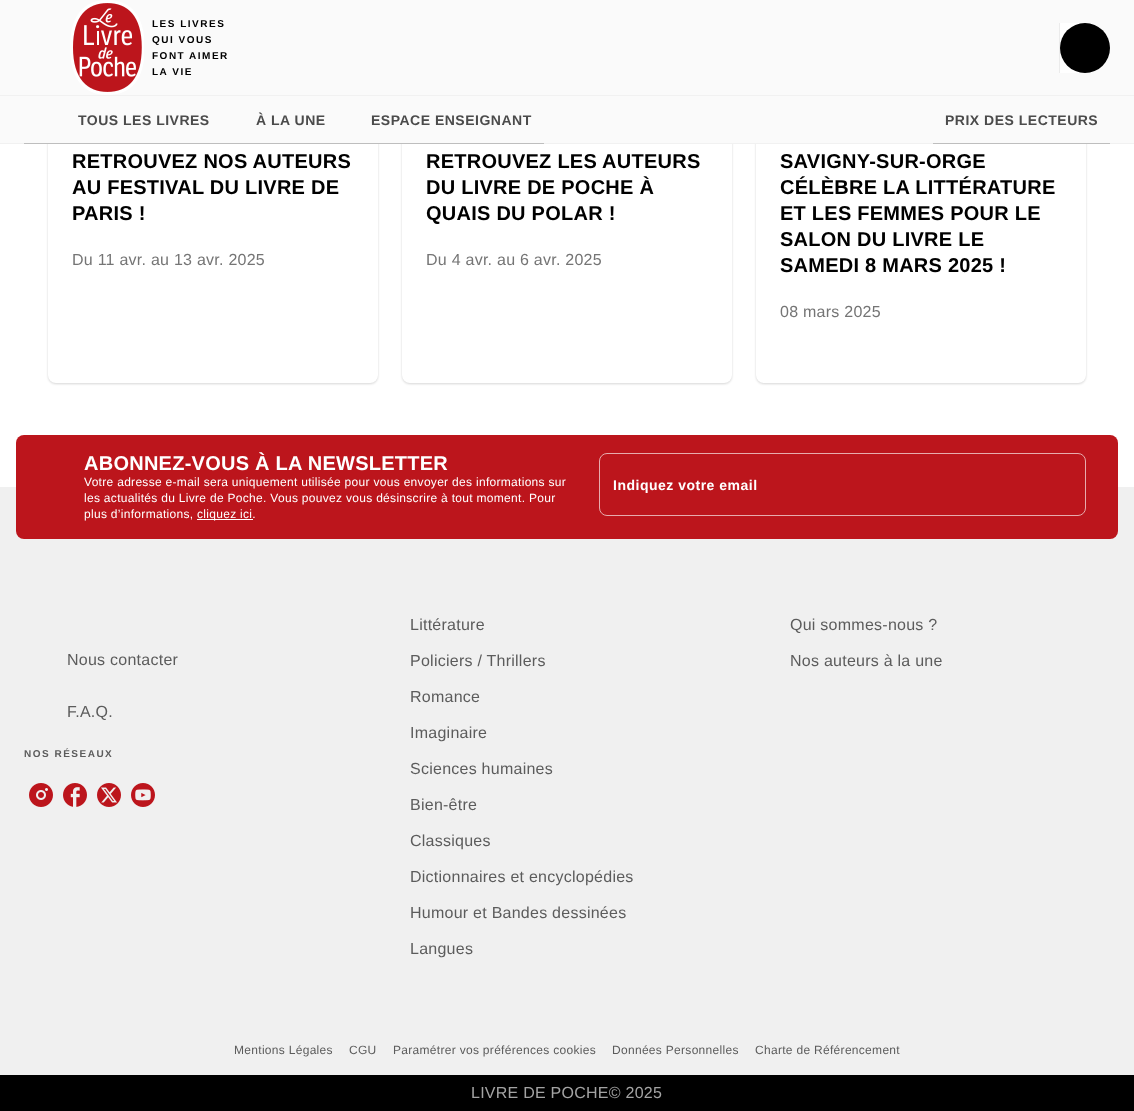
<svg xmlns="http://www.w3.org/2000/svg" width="1134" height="1111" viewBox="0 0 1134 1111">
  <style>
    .t1 { font: bold 10px Liberation Sans; letter-spacing: 1.5px; fill: #000; }
    .t2 { font: bold 14px Liberation Sans; letter-spacing: 0.5px; fill: #4b4b4b; }
    .t3 { font: bold 20px Liberation Sans; letter-spacing: 0.25px; fill: #000; }
    .t4 { font: 16px Liberation Sans; letter-spacing: 0.25px; fill: #757575; }
    .t5 { font: bold 20px Liberation Sans; letter-spacing: 0.25px; fill: #fff; }
    .t6 { font: 12px Liberation Sans; letter-spacing: 0.3px; fill: #fff; }
    .t7 { font: bold 14px Liberation Sans; letter-spacing: 0.5px; fill: #fff; }
    .t8 { font: 16px Liberation Sans; letter-spacing: 0.25px; fill: #5c5c5c; }
    .t9 { font: bold 10px Liberation Sans; letter-spacing: 1.5px; fill: #5c5c5c; }
    .t10 { font: 12px Liberation Sans; letter-spacing: 0.3px; fill: #5c5c5c; }
    .t11 { font: 16px Liberation Sans; letter-spacing: 0.25px; fill: #a3a3a3; }
  </style>
  <rect width="100%" height="100%" fill="#fff"/>
  <rect x="48" y="-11" width="330" height="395" rx="8" fill="#00000029" filter="blur(1px)"/>
  <rect x="48" y="-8" width="330" height="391" rx="8" fill="#fff"/>
  <rect x="402" y="-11" width="330" height="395" rx="8" fill="#00000029" filter="blur(1px)"/>
  <rect x="402" y="-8" width="330" height="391" rx="8" fill="#fff"/>
  <rect x="756" y="-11" width="330" height="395" rx="8" fill="#00000029" filter="blur(1px)"/>
  <rect x="756" y="-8" width="330" height="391" rx="8" fill="#fff"/>
  <rect x="0" y="0" width="1134" height="95" fill="#fafafa"/>
  <rect x="0" y="95" width="1134" height="1" fill="#f1f1f1"/>
  <image x="70" y="0" width="74" height="95" href="images/1.png"/>
  <text x="152" y="27" class="t1">LES LIVRES</text>
  <text x="152" y="43" class="t1">QUI VOUS</text>
  <text x="152" y="59" class="t1">FONT AIMER</text>
  <text x="152" y="75" class="t1">LA VIE</text>
  <path d="M1059 23H1085C1099 23 1110 34 1110 48C1110 62 1099 73 1085 73H1059Z" fill="#fff"/>
  <rect x="1059" y="23" width="1" height="50" fill="#ebebeb"/>
  <circle cx="1085" cy="48" r="25" fill="#000"/>
  <rect x="0" y="96" width="1134" height="47" fill="#fafafa"/>
  <text x="78" y="125" class="t2">TOUS LES LIVRES</text>
  <text x="256" y="125" class="t2">À LA UNE</text>
  <text x="371" y="125" class="t2">ESPACE ENSEIGNANT</text>
  <text x="945" y="125" class="t2">PRIX DES LECTEURS</text>
  <rect x="0" y="143" width="1134" height="1" fill="#f1f1f1"/>
  <rect x="933" y="143" width="177" height="1" fill="#bebebe"/>
  <rect x="24" y="143" width="520" height="1" fill="#bebebe"/>
  <text x="72" y="168" class="t3">RETROUVEZ NOS AUTEURS</text>
  <text x="72" y="194" class="t3">AU FESTIVAL DU LIVRE DE</text>
  <text x="72" y="220" class="t3">PARIS !</text>
  <text x="72" y="265" class="t4">Du 11 avr. au 13 avr. 2025</text>
  <text x="426" y="168" class="t3">RETROUVEZ LES AUTEURS</text>
  <text x="426" y="194" class="t3">DU LIVRE DE POCHE À</text>
  <text x="426" y="220" class="t3">QUAIS DU POLAR !</text>
  <text x="426" y="265" class="t4">Du 4 avr. au 6 avr. 2025</text>
  <text x="780" y="168" class="t3">SAVIGNY-SUR-ORGE</text>
  <text x="780" y="194" class="t3">CÉLÈBRE LA LITTÉRATURE</text>
  <text x="780" y="220" class="t3">ET LES FEMMES POUR LE</text>
  <text x="780" y="246" class="t3">SALON DU LIVRE LE</text>
  <text x="780" y="272" class="t3">SAMEDI 8 MARS 2025 !</text>
  <text x="780" y="317" class="t4">08 mars 2025</text>
  <rect x="0" y="487" width="1134" height="588" fill="#f0f0f0"/>
  <rect x="16" y="435" width="1102" height="104" rx="8" fill="#bc151c"/>
  <text x="84" y="470" class="t5">ABONNEZ-VOUS À LA NEWSLETTER</text>
  <text x="84" y="486" class="t6">Votre adresse e-mail sera uniquement utilisée pour vous envoyer des informations sur</text>
  <text x="84" y="502" class="t6">les actualités du Livre de Poche. Vous pouvez vous désinscrire à tout moment. Pour</text>
  <text x="84" y="518" class="t6">plus d’informations,</text>
  <rect x="197" y="519" width="56" height="1" fill="#fff"/>
  <text x="197" y="518" class="t6">cliquez ici.</text>
  <rect x="599.5" y="453.5" width="486" height="62" rx="7.5" fill="none" stroke="#e7abad"/>
  <text x="613" y="490" class="t7">Indiquez votre email</text>
  <text x="67" y="665" class="t8">Nous contacter</text>
  <text x="67" y="717" class="t8">F.A.Q.</text>
  <text x="24" y="757" class="t9">NOS RÉSEAUX</text>
  <image x="29" y="783" width="24" height="24" href="images/2.png"/>
  <image x="63" y="783" width="24" height="24" href="images/3.png"/>
  <image x="97" y="783" width="24" height="24" href="images/4.png"/>
  <image x="131" y="783" width="24" height="24" href="images/5.png"/>
  <text x="410" y="630" class="t8">Littérature</text>
  <text x="410" y="666" class="t8">Policiers / Thrillers</text>
  <text x="410" y="702" class="t8">Romance</text>
  <text x="410" y="738" class="t8">Imaginaire</text>
  <text x="410" y="774" class="t8">Sciences humaines</text>
  <text x="410" y="810" class="t8">Bien-être</text>
  <text x="410" y="846" class="t8">Classiques</text>
  <text x="410" y="882" class="t8">Dictionnaires et encyclopédies</text>
  <text x="410" y="918" class="t8">Humour et Bandes dessinées</text>
  <text x="410" y="954" class="t8">Langues</text>
  <text x="790" y="630" class="t8">Qui sommes-nous ?</text>
  <text x="790" y="666" class="t8">Nos auteurs à la une</text>
  <text x="234" y="1054" class="t10">Mentions Légales</text>
  <text x="349" y="1054" class="t10">CGU</text>
  <text x="393" y="1054" class="t10">Paramétrer vos préférences cookies</text>
  <text x="612" y="1054" class="t10">Données Personnelles</text>
  <text x="755" y="1054" class="t10">Charte de Référencement</text>
  <rect x="0" y="1075" width="1134" height="36" fill="#000"/>
  <text x="471" y="1098" class="t11">LIVRE DE POCHE© 2025</text>
</svg>
